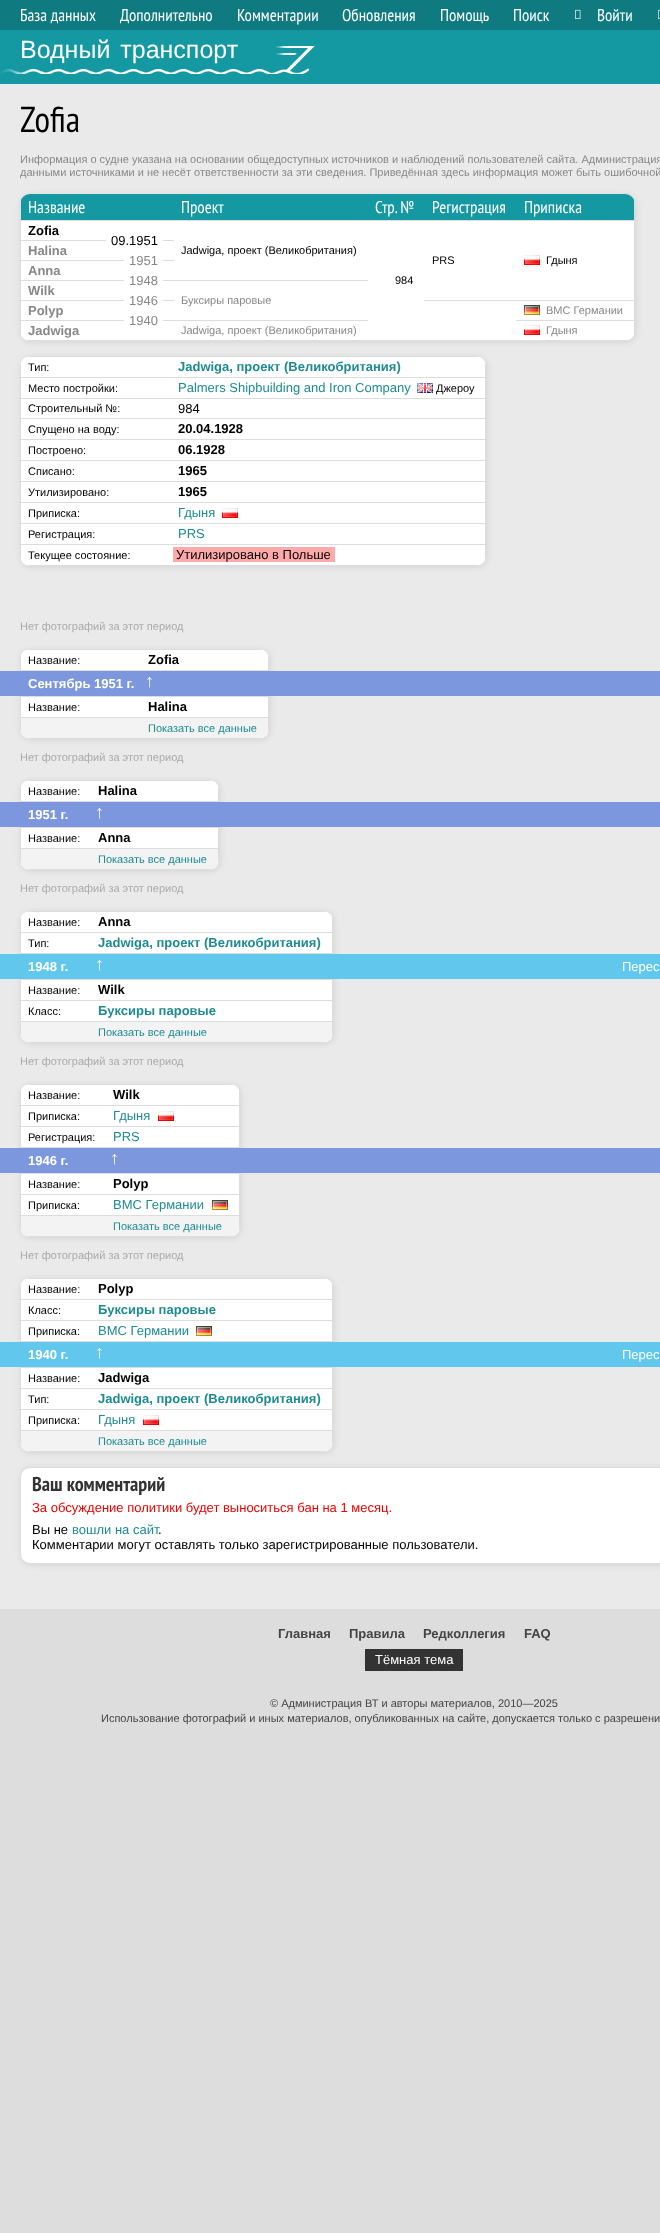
<svg xmlns="http://www.w3.org/2000/svg" width="660" height="2233" viewBox="0 0 660 2233">
  <style>
    .t1 { font: 17px PT Sans Narrow; fill: #fff; }
    .t2 { font: 25px Liberation Sans; fill: #fff; }
    .t3 { font: 36px PT Sans Narrow; fill: #000; }
    .t4 { font: 11px Liberation Sans; fill: #888; }
    .t5 { font: bold 13px Liberation Sans; fill: #000; }
    .t6 { font: 13px Liberation Sans; fill: #000; }
    .t7 { font: 11px Liberation Sans; fill: #000; }
    .t8 { font: bold 13px Liberation Sans; fill: #888; }
    .t9 { font: 13px Liberation Sans; fill: #888; }
    .t10 { font: bold 13px Liberation Sans; fill: #1e8b92; }
    .t11 { font: 13px Liberation Sans; fill: #1e8b92; }
    .t12 { font: 11px Liberation Sans; fill: #aaa; }
    .t13 { font: bold 13px Liberation Sans; fill: #fff; }
    .t14 { font: 18px Liberation Sans; fill: #fff; }
    .t15 { font: 11px Liberation Sans; fill: #1e8b92; }
    .t16 { font: 13px Liberation Sans; fill: #fff; }
    .t17 { font: bold 20px PT Sans Narrow; fill: #333; }
    .t18 { font: 13px Liberation Sans; fill: #e00; }
    .t19 { font: bold 13px Liberation Sans; fill: #444; }
    .t20 { font: 11px Liberation Sans; fill: #444; }
  </style>
  <defs>
    <clipPath id="clip1"><rect x="20" y="194" width="615" height="147" rx="10"/></clipPath>
    <clipPath id="clip2"><rect x="20" y="356" width="466" height="210" rx="10"/></clipPath>
    <clipPath id="clip3"><rect x="20" y="649" width="249" height="90" rx="10"/></clipPath>
    <clipPath id="clip4"><rect x="20" y="780" width="199" height="90" rx="10"/></clipPath>
    <clipPath id="clip5"><rect x="20" y="911" width="313" height="132" rx="10"/></clipPath>
    <clipPath id="clip6"><rect x="20" y="1084" width="220" height="153" rx="10"/></clipPath>
    <clipPath id="clip7"><rect x="20" y="1278" width="313" height="174" rx="10"/></clipPath>
  </defs>
  <rect width="100%" height="100%" fill="#ddd"/>
  <rect x="0" y="0" width="660" height="30" fill="#107a81"/>
  <text x="20" y="21" class="t1">База данных</text>
  <text x="120" y="21" class="t1">Дополнительно</text>
  <text x="237" y="21" class="t1">Комментарии</text>
  <text x="342" y="21" class="t1">Обновления</text>
  <text x="440" y="21" class="t1">Помощь</text>
  <text x="513" y="21" class="t1">Поиск</text>
  <image x="575" y="9" width="6" height="10" href="images/1.png"/>
  <text x="597" y="21" class="t1">Войти</text>
  <image x="658" y="9" width="2" height="10" href="images/2.png"/>
  <rect x="0" y="30" width="660" height="54" fill="#1498a1"/>
  <image x="1" y="46" width="314" height="28" href="images/3.png"/>
  <text x="20" y="58" word-spacing="3" class="t2">Водный транспорт</text>
  <rect x="0" y="84" width="660" height="1525" fill="#eaeaea"/>
  <text x="20" y="132" class="t3">Zofia</text>
  <text x="20" y="163" class="t4">Информация о судне указана на основании общедоступных источников и наблюдений пользователей сайта. Администрация</text>
  <text x="20" y="176" class="t4">данными источниками и не несёт ответственности за эти сведения. Приведённая здесь информация может быть ошибочной</text>
  <rect x="20" y="194" width="617" height="149" rx="11" fill="#aaaaaa45" filter="blur(2.5px)"/>
  <rect x="96" y="194" width="421" height="26" fill="#1498a1"/>
  <g clip-path="url(#clip1)">
    <rect x="21" y="194" width="75" height="26" fill="#1498a1"/>
  </g>
  <text x="28" y="213" class="t1">Название</text>
  <text x="181" y="213" class="t1">Проект</text>
  <text x="375" y="213" class="t1">Стр. №</text>
  <text x="432" y="213" class="t1">Регистрация</text>
  <g clip-path="url(#clip1)">
    <rect x="517" y="194" width="117" height="26" fill="#1498a1"/>
  </g>
  <text x="524" y="213" class="t1">Приписка</text>
  <g clip-path="url(#clip1)">
    <rect x="21" y="221" width="613" height="120" fill="#fff"/>
  </g>
  <rect x="20" y="220" width="615" height="1" fill="#ddd"/>
  <g clip-path="url(#clip1)">
    <rect x="20" y="340" width="615" height="1" fill="#ddd"/>
    <rect x="20" y="220" width="1" height="121" fill="#ddd"/>
  </g>
  <text x="28" y="235" class="t5">Zofia</text>
  <rect x="20" y="240" width="154" height="1" fill="#ddd"/>
  <rect x="106" y="240" width="57" height="1" fill="#fff"/>
  <text x="111" y="245" class="t6">09.1951</text>
  <text x="181" y="254" class="t7">Jadwiga, проект (Великобритания)</text>
  <text x="432" y="264" class="t7">PRS</text>
  <rect x="424" y="300" width="211" height="1" fill="#ddd"/>
  <image x="524" y="255" width="16" height="10" href="images/4.png"/>
  <text x="546" y="264" class="t7">Гдыня</text>
  <text x="395" y="284" class="t7">984</text>
  <text x="28" y="255" class="t8">Halina</text>
  <rect x="20" y="260" width="154" height="1" fill="#ddd"/>
  <rect x="124" y="260" width="39" height="1" fill="#fff"/>
  <text x="129" y="265" class="t9">1951</text>
  <text x="28" y="275" class="t8">Anna</text>
  <rect x="20" y="280" width="348" height="1" fill="#ddd"/>
  <rect x="124" y="280" width="39" height="1" fill="#fff"/>
  <text x="129" y="285" class="t9">1948</text>
  <text x="28" y="295" class="t8">Wilk</text>
  <rect x="20" y="300" width="154" height="1" fill="#ddd"/>
  <rect x="124" y="300" width="39" height="1" fill="#fff"/>
  <text x="129" y="305" class="t9">1946</text>
  <text x="181" y="304" class="t4">Буксиры паровые</text>
  <text x="28" y="315" class="t8">Polyp</text>
  <rect x="516" y="320" width="119" height="1" fill="#ddd"/>
  <image x="524" y="305" width="16" height="10" href="images/5.png"/>
  <text x="546" y="314" class="t4">ВМС Германии</text>
  <rect x="20" y="320" width="348" height="1" fill="#ddd"/>
  <rect x="124" y="320" width="39" height="1" fill="#fff"/>
  <text x="129" y="325" class="t9">1940</text>
  <g clip-path="url(#clip1)">
    <rect x="20" y="340" width="76" height="1" fill="#ddd"/>
  </g>
  <text x="28" y="335" class="t8">Jadwiga</text>
  <text x="181" y="334" class="t4">Jadwiga, проект (Великобритания)</text>
  <g clip-path="url(#clip1)">
    <rect x="516" y="340" width="119" height="1" fill="#ddd"/>
  </g>
  <image x="524" y="325" width="16" height="10" href="images/4.png"/>
  <text x="546" y="334" class="t4">Гдыня</text>
  <rect x="20" y="356" width="468" height="212" rx="11" fill="#aaaaaa45" filter="blur(2.5px)"/>
  <rect x="20" y="356" width="466" height="210" rx="10" fill="#fff"/>
  <g clip-path="url(#clip2)">
    <rect x="20" y="356" width="466" height="1" fill="#ddd"/>
    <rect x="485" y="356" width="1" height="210" fill="#ddd"/>
    <rect x="20" y="356" width="1" height="210" fill="#ddd"/>
  </g>
  <text x="28" y="371" class="t7">Тип:</text>
  <rect x="20" y="377" width="466" height="1" fill="#ddd"/>
  <text x="178" y="371" class="t10">Jadwiga, проект (Великобритания)</text>
  <text x="28" y="392" class="t7">Место постройки:</text>
  <rect x="20" y="398" width="466" height="1" fill="#ddd"/>
  <text x="178" y="392" class="t11">Palmers Shipbuilding and Iron Company</text>
  <image x="417" y="383" width="16" height="10" href="images/6.png"/>
  <text x="436" y="392" class="t7">Джероу</text>
  <text x="28" y="412" class="t7">Строительный №:</text>
  <rect x="20" y="418" width="466" height="1" fill="#ddd"/>
  <text x="178" y="413" class="t6">984</text>
  <text x="28" y="433" class="t7">Спущено на воду:</text>
  <rect x="20" y="439" width="466" height="1" fill="#ddd"/>
  <text x="178" y="433" class="t5">20.04.1928</text>
  <text x="28" y="454" class="t7">Построено:</text>
  <rect x="20" y="460" width="466" height="1" fill="#ddd"/>
  <text x="178" y="454" class="t5">06.1928</text>
  <text x="28" y="475" class="t7">Списано:</text>
  <rect x="20" y="481" width="466" height="1" fill="#ddd"/>
  <text x="178" y="475" class="t5">1965</text>
  <text x="28" y="496" class="t7">Утилизировано:</text>
  <rect x="20" y="502" width="466" height="1" fill="#ddd"/>
  <text x="178" y="496" class="t5">1965</text>
  <text x="28" y="517" class="t7">Приписка:</text>
  <rect x="20" y="523" width="466" height="1" fill="#ddd"/>
  <text x="178" y="517" class="t11">Гдыня</text>
  <image x="222" y="508" width="16" height="10" href="images/4.png"/>
  <text x="28" y="538" class="t7">Регистрация:</text>
  <rect x="20" y="544" width="466" height="1" fill="#ddd"/>
  <text x="178" y="538" class="t11">PRS</text>
  <g clip-path="url(#clip2)">
    <rect x="170" y="565" width="316" height="1" fill="#ddd"/>
    <rect x="20" y="565" width="151" height="1" fill="#ddd"/>
  </g>
  <text x="28" y="559" class="t7">Текущее состояние:</text>
  <rect x="173" y="547" width="162" height="15" fill="#faa"/>
  <text x="176" y="559" class="t6">Утилизировано в Польше</text>
  <text x="20" y="630" class="t12">Нет фотографий за этот период</text>
  <rect x="20" y="649" width="251" height="92" rx="11" fill="#aaaaaa45" filter="blur(2.5px)"/>
  <rect x="20" y="649" width="249" height="90" rx="10" fill="#fff"/>
  <g clip-path="url(#clip3)">
    <rect x="21" y="650" width="248" height="20" fill="#fff"/>
    <path d="M21 718H269V729C269 734.5 264.5 739 259 739H21Z" fill="#f3f3f3"/>
    <rect x="268" y="649" width="1" height="90" fill="#ddd"/>
    <rect x="20" y="649" width="1" height="90" fill="#ddd"/>
    <rect x="20" y="649" width="249" height="1" fill="#ddd"/>
    <rect x="268" y="649" width="1" height="22" fill="#ddd"/>
  </g>
  <rect x="20" y="670" width="249" height="1" fill="#ddd"/>
  <g clip-path="url(#clip3)">
    <rect x="20" y="649" width="1" height="22" fill="#ddd"/>
  </g>
  <text x="28" y="664" class="t7">Название:</text>
  <text x="148" y="664" class="t5">Zofia</text>
  <rect x="0" y="671" width="660" height="25" fill="#7d97df"/>
  <text x="28" y="688" class="t13">Сентябрь 1951 г.</text>
  <text x="145" y="687" class="t14">↑</text>
  <rect x="20" y="696" width="249" height="1" fill="#ddd"/>
  <rect x="20" y="717" width="249" height="1" fill="#ddd"/>
  <text x="28" y="711" class="t7">Название:</text>
  <text x="148" y="711" class="t5">Halina</text>
  <g clip-path="url(#clip3)">
    <rect x="141" y="738" width="128" height="1" fill="#ddd"/>
  </g>
  <text x="148" y="732" class="t15">Показать все данные</text>
  <g clip-path="url(#clip3)">
    <rect x="20" y="738" width="122" height="1" fill="#ddd"/>
  </g>
  <text x="20" y="761" class="t12">Нет фотографий за этот период</text>
  <rect x="20" y="780" width="201" height="92" rx="11" fill="#aaaaaa45" filter="blur(2.5px)"/>
  <rect x="20" y="780" width="199" height="90" rx="10" fill="#fff"/>
  <g clip-path="url(#clip4)">
    <rect x="21" y="781" width="198" height="20" fill="#fff"/>
    <path d="M21 849H219V860C219 865.5 214.5 870 209 870H21Z" fill="#f3f3f3"/>
    <rect x="218" y="780" width="1" height="90" fill="#ddd"/>
    <rect x="20" y="780" width="1" height="90" fill="#ddd"/>
    <rect x="20" y="780" width="199" height="1" fill="#ddd"/>
    <rect x="218" y="780" width="1" height="22" fill="#ddd"/>
  </g>
  <rect x="20" y="801" width="199" height="1" fill="#ddd"/>
  <g clip-path="url(#clip4)">
    <rect x="20" y="780" width="1" height="22" fill="#ddd"/>
  </g>
  <text x="28" y="795" class="t7">Название:</text>
  <text x="98" y="795" class="t5">Halina</text>
  <rect x="0" y="802" width="660" height="25" fill="#7d97df"/>
  <text x="28" y="819" class="t13">1951 г.</text>
  <text x="95" y="818" class="t14">↑</text>
  <rect x="20" y="827" width="199" height="1" fill="#ddd"/>
  <rect x="20" y="848" width="199" height="1" fill="#ddd"/>
  <text x="28" y="842" class="t7">Название:</text>
  <text x="98" y="842" class="t5">Anna</text>
  <g clip-path="url(#clip4)">
    <rect x="91" y="869" width="128" height="1" fill="#ddd"/>
  </g>
  <text x="98" y="863" class="t15">Показать все данные</text>
  <g clip-path="url(#clip4)">
    <rect x="20" y="869" width="72" height="1" fill="#ddd"/>
  </g>
  <text x="20" y="892" class="t12">Нет фотографий за этот период</text>
  <rect x="20" y="911" width="315" height="134" rx="11" fill="#aaaaaa45" filter="blur(2.5px)"/>
  <rect x="20" y="911" width="313" height="132" rx="10" fill="#fff"/>
  <g clip-path="url(#clip5)">
    <rect x="332" y="911" width="1" height="132" fill="#ddd"/>
    <rect x="20" y="911" width="1" height="132" fill="#ddd"/>
    <rect x="21" y="912" width="311" height="41" fill="#fff"/>
    <rect x="20" y="911" width="313" height="1" fill="#ddd"/>
    <rect x="332" y="911" width="1" height="43" fill="#ddd"/>
  </g>
  <rect x="20" y="953" width="313" height="1" fill="#ddd"/>
  <g clip-path="url(#clip5)">
    <rect x="20" y="911" width="1" height="43" fill="#ddd"/>
  </g>
  <text x="28" y="926" class="t7">Название:</text>
  <rect x="20" y="932" width="313" height="1" fill="#ddd"/>
  <text x="98" y="926" class="t5">Anna</text>
  <text x="28" y="947" class="t7">Тип:</text>
  <text x="98" y="947" class="t10">Jadwiga, проект (Великобритания)</text>
  <rect x="0" y="954" width="660" height="25" fill="#62c7ed"/>
  <text x="95" y="970" class="t14">↑</text>
  <text x="28" y="971" class="t13">1948 г.</text>
  <text x="622" y="971" class="t16">Перес</text>
  <rect x="20" y="979" width="313" height="1" fill="#ddd"/>
  <rect x="20" y="1021" width="313" height="1" fill="#ddd"/>
  <text x="28" y="994" class="t7">Название:</text>
  <rect x="20" y="1000" width="313" height="1" fill="#ddd"/>
  <text x="98" y="994" class="t5">Wilk</text>
  <text x="28" y="1015" class="t7">Класс:</text>
  <text x="98" y="1015" class="t10">Буксиры паровые</text>
  <g clip-path="url(#clip5)">
    <rect x="21" y="1022" width="311" height="21" fill="#f3f3f3"/>
    <rect x="91" y="1042" width="242" height="1" fill="#ddd"/>
  </g>
  <text x="98" y="1036" class="t15">Показать все данные</text>
  <g clip-path="url(#clip5)">
    <rect x="20" y="1042" width="72" height="1" fill="#ddd"/>
  </g>
  <text x="20" y="1065" class="t12">Нет фотографий за этот период</text>
  <rect x="20" y="1084" width="222" height="155" rx="11" fill="#aaaaaa45" filter="blur(2.5px)"/>
  <rect x="20" y="1084" width="220" height="153" rx="10" fill="#fff"/>
  <g clip-path="url(#clip6)">
    <rect x="239" y="1084" width="1" height="153" fill="#ddd"/>
    <rect x="20" y="1084" width="1" height="153" fill="#ddd"/>
    <rect x="21" y="1085" width="218" height="62" fill="#fff"/>
    <rect x="20" y="1084" width="220" height="1" fill="#ddd"/>
    <rect x="239" y="1084" width="1" height="64" fill="#ddd"/>
  </g>
  <rect x="20" y="1147" width="220" height="1" fill="#ddd"/>
  <g clip-path="url(#clip6)">
    <rect x="20" y="1084" width="1" height="64" fill="#ddd"/>
  </g>
  <text x="28" y="1099" class="t7">Название:</text>
  <rect x="20" y="1105" width="220" height="1" fill="#ddd"/>
  <text x="113" y="1099" class="t5">Wilk</text>
  <text x="28" y="1120" class="t7">Приписка:</text>
  <rect x="20" y="1126" width="220" height="1" fill="#ddd"/>
  <text x="113" y="1120" class="t11">Гдыня</text>
  <image x="158" y="1111" width="16" height="10" href="images/4.png"/>
  <text x="28" y="1141" class="t7">Регистрация:</text>
  <text x="113" y="1141" class="t11">PRS</text>
  <rect x="0" y="1148" width="660" height="25" fill="#7d97df"/>
  <text x="28" y="1165" class="t13">1946 г.</text>
  <text x="110" y="1164" class="t14">↑</text>
  <rect x="20" y="1173" width="220" height="1" fill="#ddd"/>
  <rect x="20" y="1215" width="220" height="1" fill="#ddd"/>
  <text x="28" y="1188" class="t7">Название:</text>
  <rect x="20" y="1194" width="220" height="1" fill="#ddd"/>
  <text x="113" y="1188" class="t5">Polyp</text>
  <text x="28" y="1209" class="t7">Приписка:</text>
  <text x="113" y="1209" class="t11">ВМС Германии</text>
  <image x="212" y="1200" width="16" height="10" href="images/7.png"/>
  <g clip-path="url(#clip6)">
    <rect x="21" y="1216" width="218" height="21" fill="#f3f3f3"/>
    <rect x="106" y="1236" width="134" height="1" fill="#ddd"/>
  </g>
  <text x="113" y="1230" class="t15">Показать все данные</text>
  <g clip-path="url(#clip6)">
    <rect x="20" y="1236" width="87" height="1" fill="#ddd"/>
  </g>
  <text x="20" y="1259" class="t12">Нет фотографий за этот период</text>
  <rect x="20" y="1278" width="315" height="176" rx="11" fill="#aaaaaa45" filter="blur(2.5px)"/>
  <rect x="20" y="1278" width="313" height="174" rx="10" fill="#fff"/>
  <g clip-path="url(#clip7)">
    <rect x="332" y="1278" width="1" height="174" fill="#ddd"/>
    <rect x="20" y="1278" width="1" height="174" fill="#ddd"/>
    <rect x="21" y="1279" width="311" height="62" fill="#fff"/>
    <rect x="20" y="1278" width="313" height="1" fill="#ddd"/>
    <rect x="332" y="1278" width="1" height="64" fill="#ddd"/>
  </g>
  <rect x="20" y="1341" width="313" height="1" fill="#ddd"/>
  <g clip-path="url(#clip7)">
    <rect x="20" y="1278" width="1" height="64" fill="#ddd"/>
  </g>
  <text x="28" y="1293" class="t7">Название:</text>
  <rect x="20" y="1299" width="313" height="1" fill="#ddd"/>
  <text x="98" y="1293" class="t5">Polyp</text>
  <text x="28" y="1314" class="t7">Класс:</text>
  <rect x="20" y="1320" width="313" height="1" fill="#ddd"/>
  <text x="98" y="1314" class="t10">Буксиры паровые</text>
  <text x="28" y="1335" class="t7">Приписка:</text>
  <text x="98" y="1335" class="t11">ВМС Германии</text>
  <image x="196" y="1326" width="16" height="10" href="images/8.png"/>
  <rect x="0" y="1342" width="660" height="25" fill="#62c7ed"/>
  <text x="95" y="1358" class="t14">↑</text>
  <text x="28" y="1359" class="t13">1940 г.</text>
  <text x="622" y="1359" class="t16">Перес</text>
  <rect x="20" y="1367" width="313" height="1" fill="#ddd"/>
  <rect x="20" y="1430" width="313" height="1" fill="#ddd"/>
  <text x="28" y="1382" class="t7">Название:</text>
  <rect x="20" y="1388" width="313" height="1" fill="#ddd"/>
  <text x="98" y="1382" class="t5">Jadwiga</text>
  <text x="28" y="1403" class="t7">Тип:</text>
  <rect x="20" y="1409" width="313" height="1" fill="#ddd"/>
  <text x="98" y="1403" class="t10">Jadwiga, проект (Великобритания)</text>
  <text x="28" y="1424" class="t7">Приписка:</text>
  <text x="98" y="1424" class="t11">Гдыня</text>
  <image x="143" y="1415" width="16" height="10" href="images/4.png"/>
  <g clip-path="url(#clip7)">
    <rect x="21" y="1431" width="311" height="21" fill="#f3f3f3"/>
    <rect x="91" y="1451" width="242" height="1" fill="#ddd"/>
  </g>
  <text x="98" y="1445" class="t15">Показать все данные</text>
  <g clip-path="url(#clip7)">
    <rect x="20" y="1451" width="72" height="1" fill="#ddd"/>
  </g>
  <rect x="20" y="1467" width="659" height="99" rx="11" fill="#aaaaaa45" filter="blur(2.5px)"/>
  <rect x="20.5" y="1467.5" width="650" height="96" rx="9.5" fill="#fff" stroke="#ddd"/>
  <text x="32" y="1491" class="t17">Ваш комментарий</text>
  <text x="32" y="1512" class="t18">За обсуждение политики будет выноситься бан на 1 месяц.</text>
  <text x="32" y="1534" class="t6">Вы не</text>
  <text x="72" y="1534" class="t11">вошли на сайт</text>
  <text x="158" y="1534" class="t6">.</text>
  <text x="32" y="1549" class="t6">Комментарии могут оставлять только зарегистрированные пользователи.</text>
  <text x="278" y="1638" class="t19">Главная</text>
  <text x="349" y="1638" class="t19">Правила</text>
  <text x="423" y="1638" class="t19">Редколлегия</text>
  <text x="524" y="1638" class="t19">FAQ</text>
  <rect x="365" y="1649" width="98" height="22" fill="#333"/>
  <text x="375" y="1664" class="t16">Тёмная тема</text>
  <text x="270" y="1707" class="t20">© Администрация ВТ и авторы материалов, 2010—2025</text>
  <text x="101" y="1722" class="t20">Использование фотографий и иных материалов, опубликованных на сайте, допускается только с разрешени</text>
</svg>
